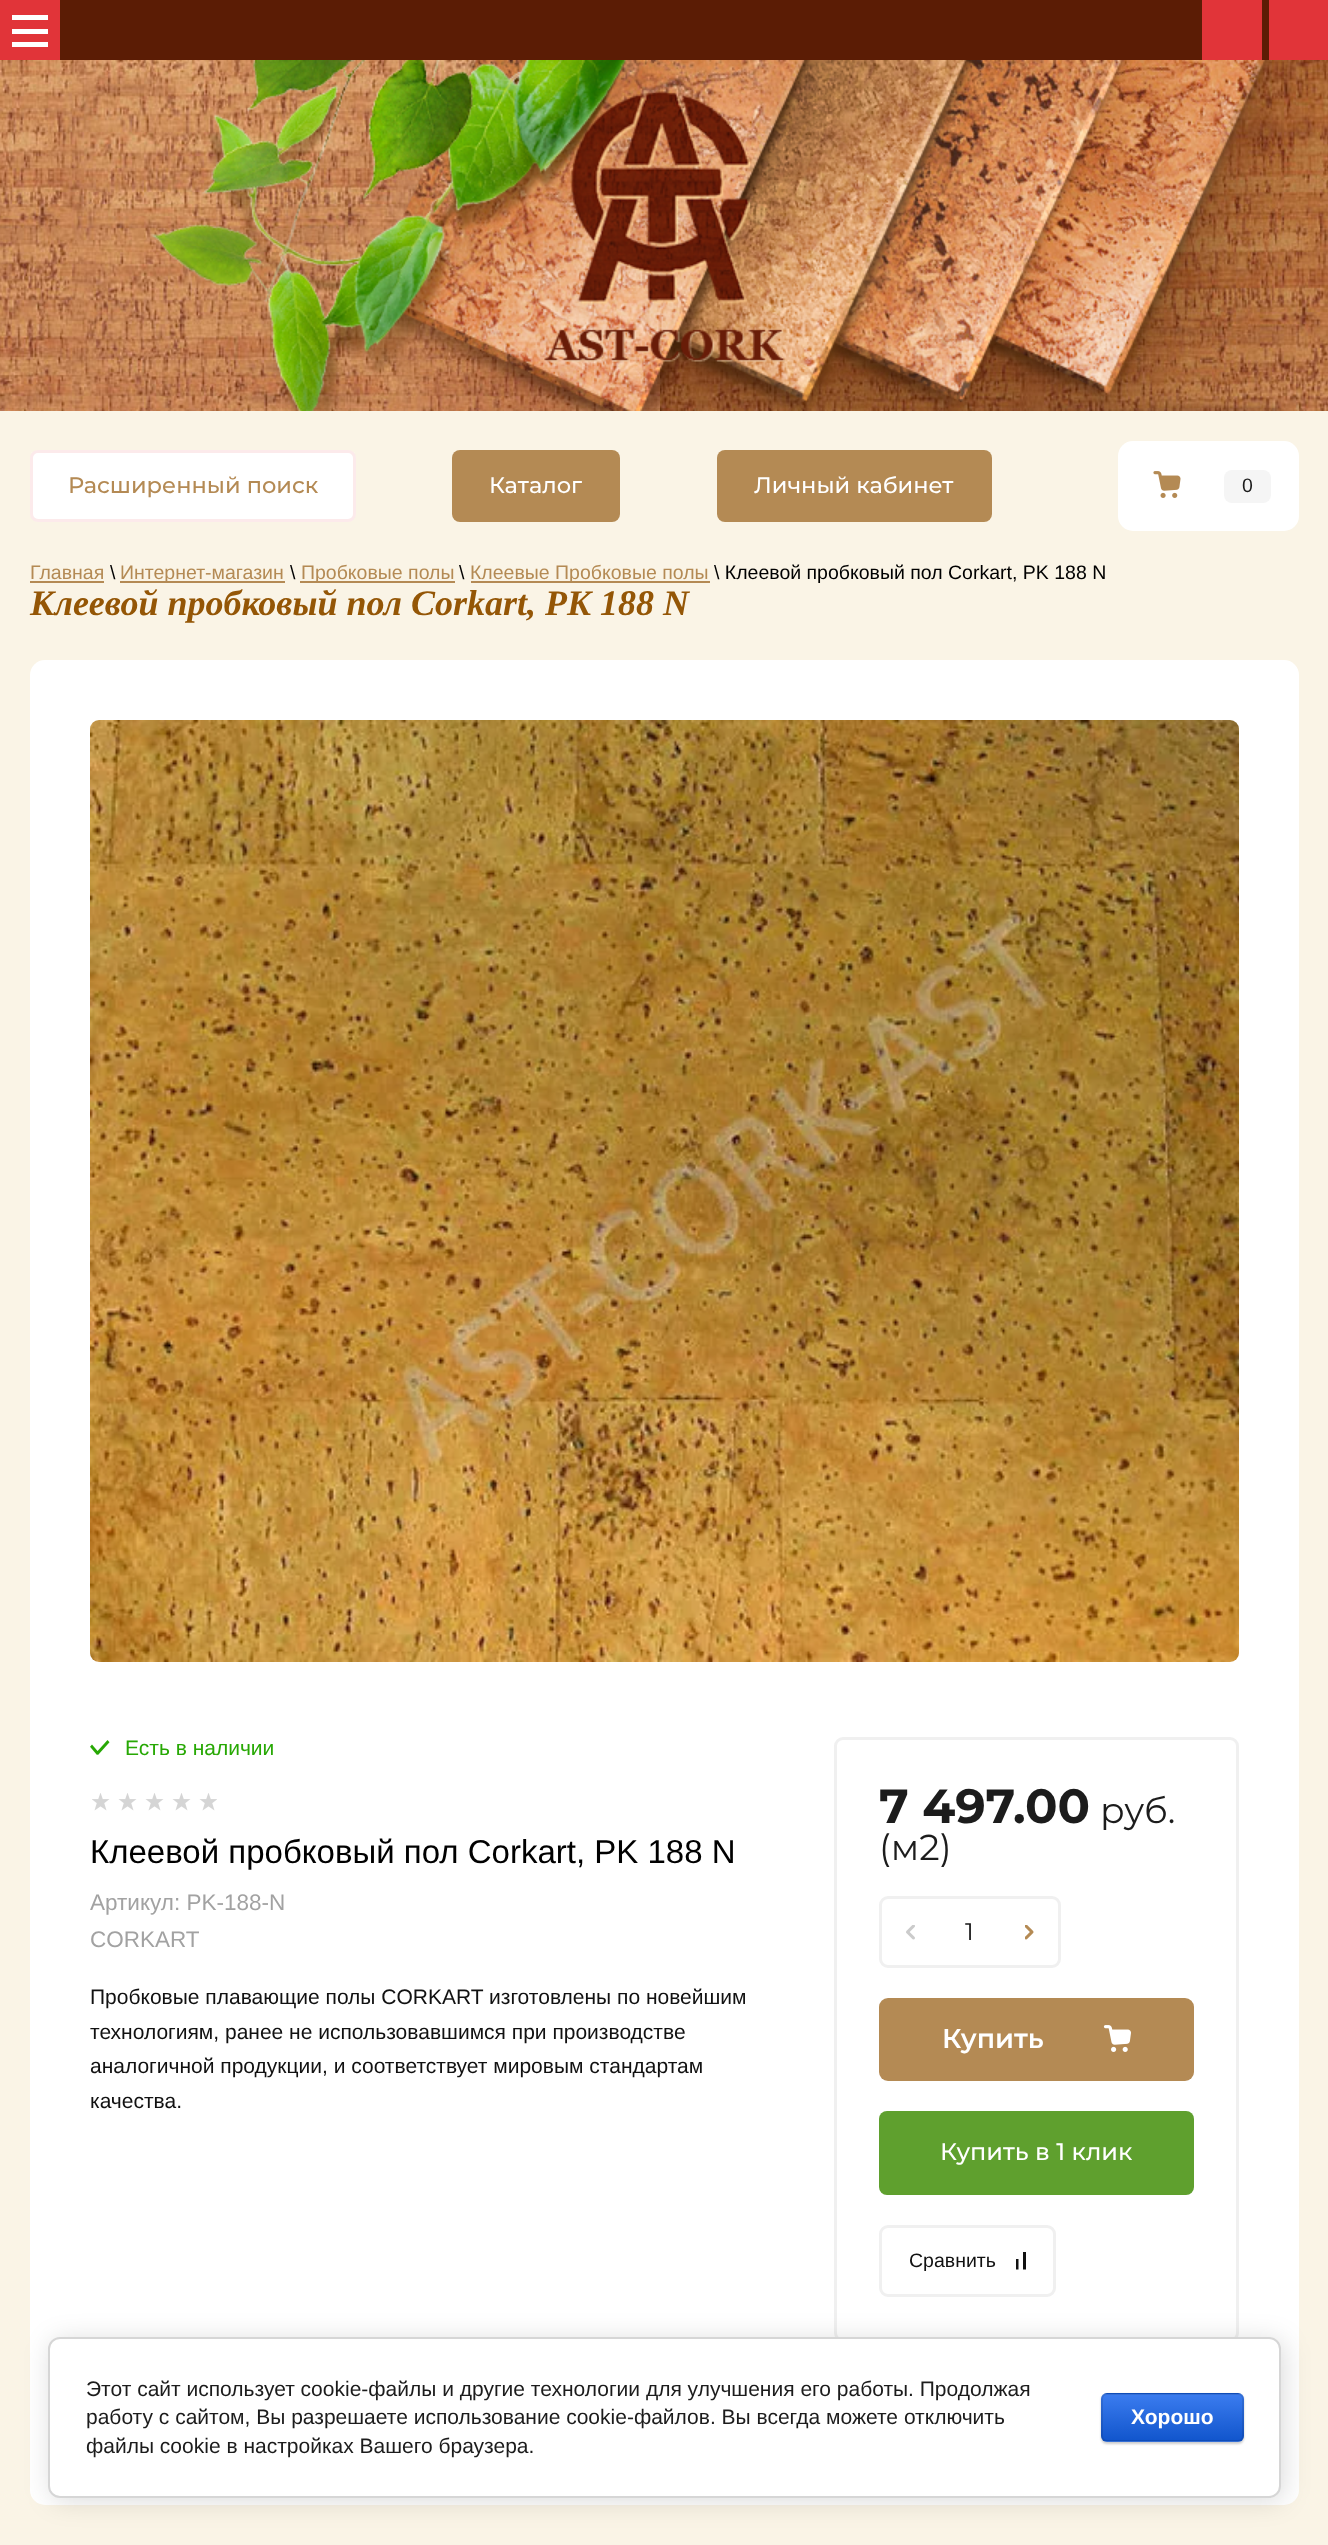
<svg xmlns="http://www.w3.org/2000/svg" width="1328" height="2545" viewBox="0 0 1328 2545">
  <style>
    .t1 { font: 500 22.5px Montserrat; fill: #b48a54; }
    .t2 { font: 500 22.5px Montserrat; fill: #fff; }
    .t3 { font: 19.5px Liberation Sans; fill: #1c1c1c; }
    .t4 { font: 19.5px Liberation Sans; fill: #b48a54; }
    .t5 { font: 19.5px Liberation Sans; fill: #000; }
    .t6 { font: italic bold 36px Liberation Serif; fill: #945606; }
    .t7 { font: 21px Liberation Sans; fill: #27a804; }
    .t8 { font: 33px Liberation Sans; fill: #000; }
    .t9 { font: 22.5px Liberation Sans; fill: #a2a2a2; }
    .t10 { font: 21px Liberation Sans; fill: #111; }
    .t11 { font: bold 48px Montserrat; fill: #1c1c1c; }
    .t12 { font: 36px Montserrat; fill: #1c1c1c; }
    .t13 { font: 24px Montserrat; fill: #111; }
    .t14 { font: 600 27px Montserrat; fill: #fff; }
    .t15 { font: 500 24px Montserrat; fill: #fff; }
    .t16 { font: 19.5px Liberation Sans; fill: #111; }
    .t17 { font: 21px Liberation Sans; fill: #1c1c1c; }
    .t18 { font: bold 21px Liberation Sans; fill: #fff; }
  </style>
  <defs>
    <clipPath id="clip1"><rect x="1101" y="2393" width="143" height="49" rx="6"/></clipPath>
    <linearGradient id="g1" gradientUnits="userSpaceOnUse" x1="1172" y1="2348" x2="1172" y2="2394"><stop offset="0" stop-color="#3b7cef"/><stop offset="1" stop-color="#15c"/></linearGradient>
    <linearGradient id="g2" gradientUnits="userSpaceOnUse" x1="1172" y1="2394" x2="1172" y2="2441"><stop offset="0" stop-color="#3b7cef"/><stop offset="1" stop-color="#15c"/></linearGradient>
    <linearGradient id="g3" gradientUnits="userSpaceOnUse" x1="1172" y1="2441" x2="1172" y2="2487"><stop offset="0" stop-color="#3b7cef"/><stop offset="1" stop-color="#15c"/></linearGradient>
  </defs>
  <rect width="100%" height="100%" fill="#fff"/>
  <image x="0" y="60" width="660" height="351" href="images/1.png"/>
  <image x="660" y="60" width="668" height="351" href="images/2.png"/>
  <image x="150" y="60" width="1165" height="351" href="images/3.png"/>
  <rect x="0" y="0" width="60" height="60" fill="#e13439"/>
  <rect x="12" y="15" width="36" height="5" fill="#fff"/>
  <rect x="12" y="42" width="36" height="5" fill="#fff"/>
  <rect x="12" y="29" width="36" height="5" fill="#fff"/>
  <rect x="60" y="0" width="1209" height="60" fill="#5b1c05"/>
  <rect x="1202" y="0" width="60" height="60" fill="#e13439"/>
  <rect x="1269" y="0" width="59" height="60" fill="#e13439"/>
  <image x="544" y="91" width="242" height="271" href="images/4.png"/>
  <rect x="0" y="411" width="1328" height="2134" fill="#faf4e6"/>
  <rect x="30" y="450" width="326" height="72" rx="8" fill="#fff"/>
  <rect x="31.5" y="451.5" width="323" height="69" rx="6.5" fill="none" stroke="#e134391a" stroke-width="3"/>
  <text x="68" y="493" class="t1">Расширенный поиск</text>
  <rect x="452" y="450" width="168" height="72" rx="8" fill="#b48a54"/>
  <text x="489" y="493" class="t2">Каталог</text>
  <rect x="717" y="450" width="275" height="72" rx="8" fill="#b48a54"/>
  <text x="754" y="493" class="t2">Личный кабинет</text>
  <rect x="1118" y="441" width="181" height="90" rx="15" fill="#fff"/>
  <image x="1153" y="471" width="28" height="27" href="images/5.png"/>
  <rect x="1224" y="470" width="47" height="33" rx="8" fill="#f5f5f5"/>
  <text x="1242" y="492" class="t3">0</text>
  <text x="30" y="579" class="t4">Главная</text>
  <rect x="30" y="581" width="74" height="2" fill="#b48a54"/>
  <text x="110" y="579" class="t5">\</text>
  <rect x="120" y="581" width="165" height="2" fill="#b48a54"/>
  <text x="120" y="579" class="t4">Интернет-магазин</text>
  <text x="290" y="579" class="t5">\</text>
  <rect x="300" y="581" width="155" height="2" fill="#b48a54"/>
  <text x="301" y="579" class="t4">Пробковые полы</text>
  <text x="459" y="579" class="t5">\</text>
  <rect x="471" y="581" width="239" height="2" fill="#b48a54"/>
  <text x="470" y="579" class="t4">Клеевые Пробковые полы</text>
  <text x="714" y="579" class="t5">\ Клеевой пробковый пол Corkart, PK 188 N</text>
  <text x="30" y="615" class="t6">Клеевой пробковый пол Corkart, PK 188 N</text>
  <rect x="30" y="660" width="1269" height="1845" rx="15" fill="#fff"/>
  <image x="90" y="720" width="1149" height="942" href="images/6.png"/>
  <image x="90" y="1740" width="20" height="15" href="images/7.png"/>
  <text x="125" y="1755" class="t7">Есть в наличии</text>
  <image x="92" y="1793" width="125" height="18" href="images/8.png"/>
  <text x="90" y="1863" class="t8">Клеевой пробковый пол Corkart, PK 188 N</text>
  <text x="90" y="1910" class="t9">Артикул: PK-188-N</text>
  <text x="90" y="1947" class="t9">CORKART</text>
  <text x="90" y="2004" class="t10">Пробковые плавающие полы CORKART изготовлены по новейшим</text>
  <text x="90" y="2039" class="t10">технологиям, ранее не использовавшимся при производстве</text>
  <text x="90" y="2073" class="t10">аналогичной продукции, и соответствует мировым стандартам</text>
  <text x="90" y="2108" class="t10">качества.</text>
  <rect x="835.5" y="1738.5" width="402" height="602" rx="7.5" fill="none" stroke="#f0f0f0" stroke-width="3"/>
  <text x="879" y="1823" class="t11">7 497.00</text>
  <text x="1100" y="1823" class="t12">руб.</text>
  <text x="879" y="1860" class="t12">(м2)</text>
  <rect x="880.5" y="1897.5" width="179" height="69" rx="7.5" fill="none" stroke="#f0f0f0" stroke-width="3"/>
  <image x="906" y="1925" width="9" height="15" href="images/9.png"/>
  <text x="965" y="1940" class="t13">1</text>
  <image x="1025" y="1925" width="9" height="15" href="images/10.png"/>
  <rect x="879" y="1998" width="315" height="83" rx="9" fill="#b48a54"/>
  <text x="942" y="2048" class="t14">Купить</text>
  <image x="1103" y="2025" width="28" height="27" href="images/11.png"/>
  <rect x="879" y="2111" width="315" height="84" rx="8" fill="#5fa02e"/>
  <text x="940" y="2160" class="t15">Купить в 1 клик</text>
  <rect x="880.5" y="2226.5" width="174" height="69" rx="7.5" fill="none" stroke="#f0f0f0" stroke-width="3"/>
  <text x="909" y="2267" class="t16">Сравнить</text>
  <image x="1016" y="2252" width="10" height="18" href="images/12.png"/>
  <rect x="51" y="2340" width="1233" height="161" rx="12" fill="#00000024" filter="blur(13.5px)"/>
  <rect x="49" y="2338" width="1231" height="159" rx="11" fill="#fff" stroke="#d6d6d6" stroke-width="2"/>
  <text x="86" y="2396" class="t17">Этот сайт использует cookie-файлы и другие технологии для улучшения его работы. Продолжая</text>
  <text x="86" y="2424" class="t17">работу с сайтом, Вы разрешаете использование cookie-файлов. Вы всегда можете отключить</text>
  <text x="86" y="2453" class="t17">файлы cookie в настройках Вашего браузера.</text>
  <rect x="1101" y="2394" width="143" height="50" rx="6" fill="#00000033" filter="blur(1px)"/>
  <g clip-path="url(#clip1)">
    <rect x="1101" y="2393" width="143" height="1" fill="url(#g1)"/>
    <rect x="1101" y="2394" width="143" height="47" fill="url(#g2)"/>
    <rect x="1101" y="2441" width="143" height="1" fill="url(#g3)"/>
  </g>
  <rect x="1102" y="2394" width="141" height="47" rx="5" fill="none" stroke="#0000001a" stroke-width="2"/>
  <text x="1131" y="2424" class="t18">Хорошо</text>
</svg>
